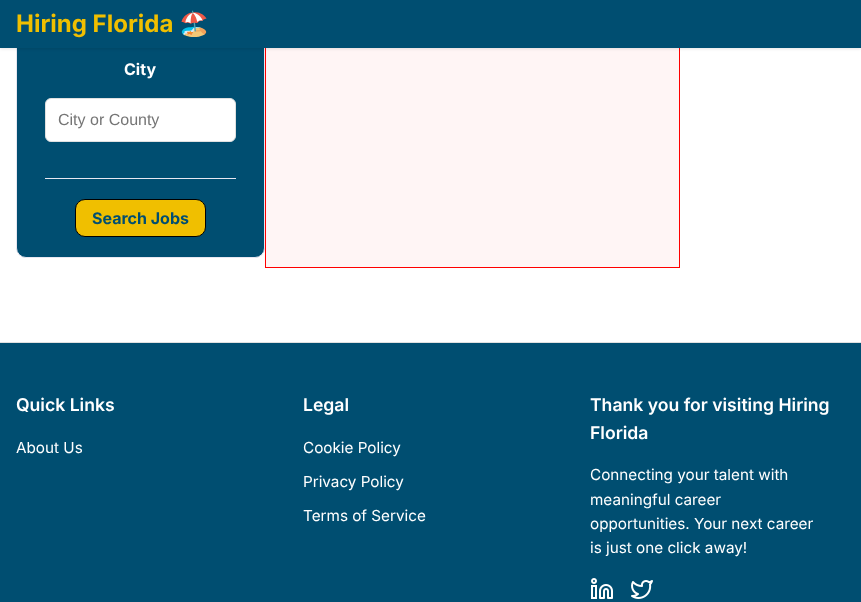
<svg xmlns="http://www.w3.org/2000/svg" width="861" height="602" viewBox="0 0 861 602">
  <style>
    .t1 { font: bold 24px Inter; fill: #f0bf00; }
    .t2 { font: bold 24px Noto Color Emoji; fill: #f0bf00; }
    .t3 { font: bold 16px Inter; fill: #fff; }
    .t4 { font: 16px Liberation Sans; fill: #757575; }
    .t5 { font: bold 16px Inter; fill: #004e71; }
    .t6 { font: 600 17.6px Inter; fill: #fff; }
    .t7 { font: 15.25px Inter; fill: #fff; }
  </style>
  <rect width="100%" height="100%" fill="#fff"/>
  <rect x="16.5" y="-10.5" width="248" height="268" rx="9.5" fill="#004e71" stroke="#e7e7f1"/>
  <rect x="266" y="48" width="413" height="219" fill="#fff5f5"/>
  <rect x="265.5" y="-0.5" width="414" height="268" fill="none" stroke="#f00"/>
  <rect x="0" y="1" width="861" height="48" fill="#0000001a" filter="blur(1.5px)"/>
  <rect x="0" y="0" width="861" height="48" fill="#004e71"/>
  <text x="16" y="32" class="t1">Hiring Florida</text>
  <text x="179" y="32" class="t2">🏖️</text>
  <text x="124" y="75" class="t3">City</text>
  <rect x="45.5" y="98.5" width="190" height="43" rx="5.5" fill="#fff" stroke="#e0e0e0"/>
  <text x="58" y="125" class="t4">City or County</text>
  <rect x="45" y="178" width="191" height="1" fill="#e7e7f1"/>
  <rect x="75.5" y="199.5" width="130" height="37" rx="9.5" fill="#f0bf00" stroke="#000"/>
  <text x="92" y="224" class="t5">Search Jobs</text>
  <rect x="0" y="343" width="861" height="259" fill="#004e71"/>
  <rect x="0" y="342" width="861" height="1" fill="#e0e0e0"/>
  <text x="16" y="411" class="t6">Quick Links</text>
  <text x="16" y="453" class="t7">About Us</text>
  <text x="303" y="411" class="t6">Legal</text>
  <text x="303" y="453" class="t7">Cookie Policy</text>
  <text x="303" y="487" class="t7">Privacy Policy</text>
  <text x="303" y="521" class="t7">Terms of Service</text>
  <text x="590" y="411" class="t6">Thank you for visiting Hiring</text>
  <text x="590" y="439" class="t6">Florida</text>
  <text x="590" y="480" class="t7">Connecting your talent with</text>
  <text x="590" y="505" class="t7">meaningful career</text>
  <text x="590" y="529" class="t7">opportunities. Your next career</text>
  <text x="590" y="553" class="t7">is just one click away!</text>
  <image x="591" y="578" width="22" height="21" href="images/1.png"/>
  <image x="631" y="580" width="22" height="19" href="images/2.png"/>
</svg>
